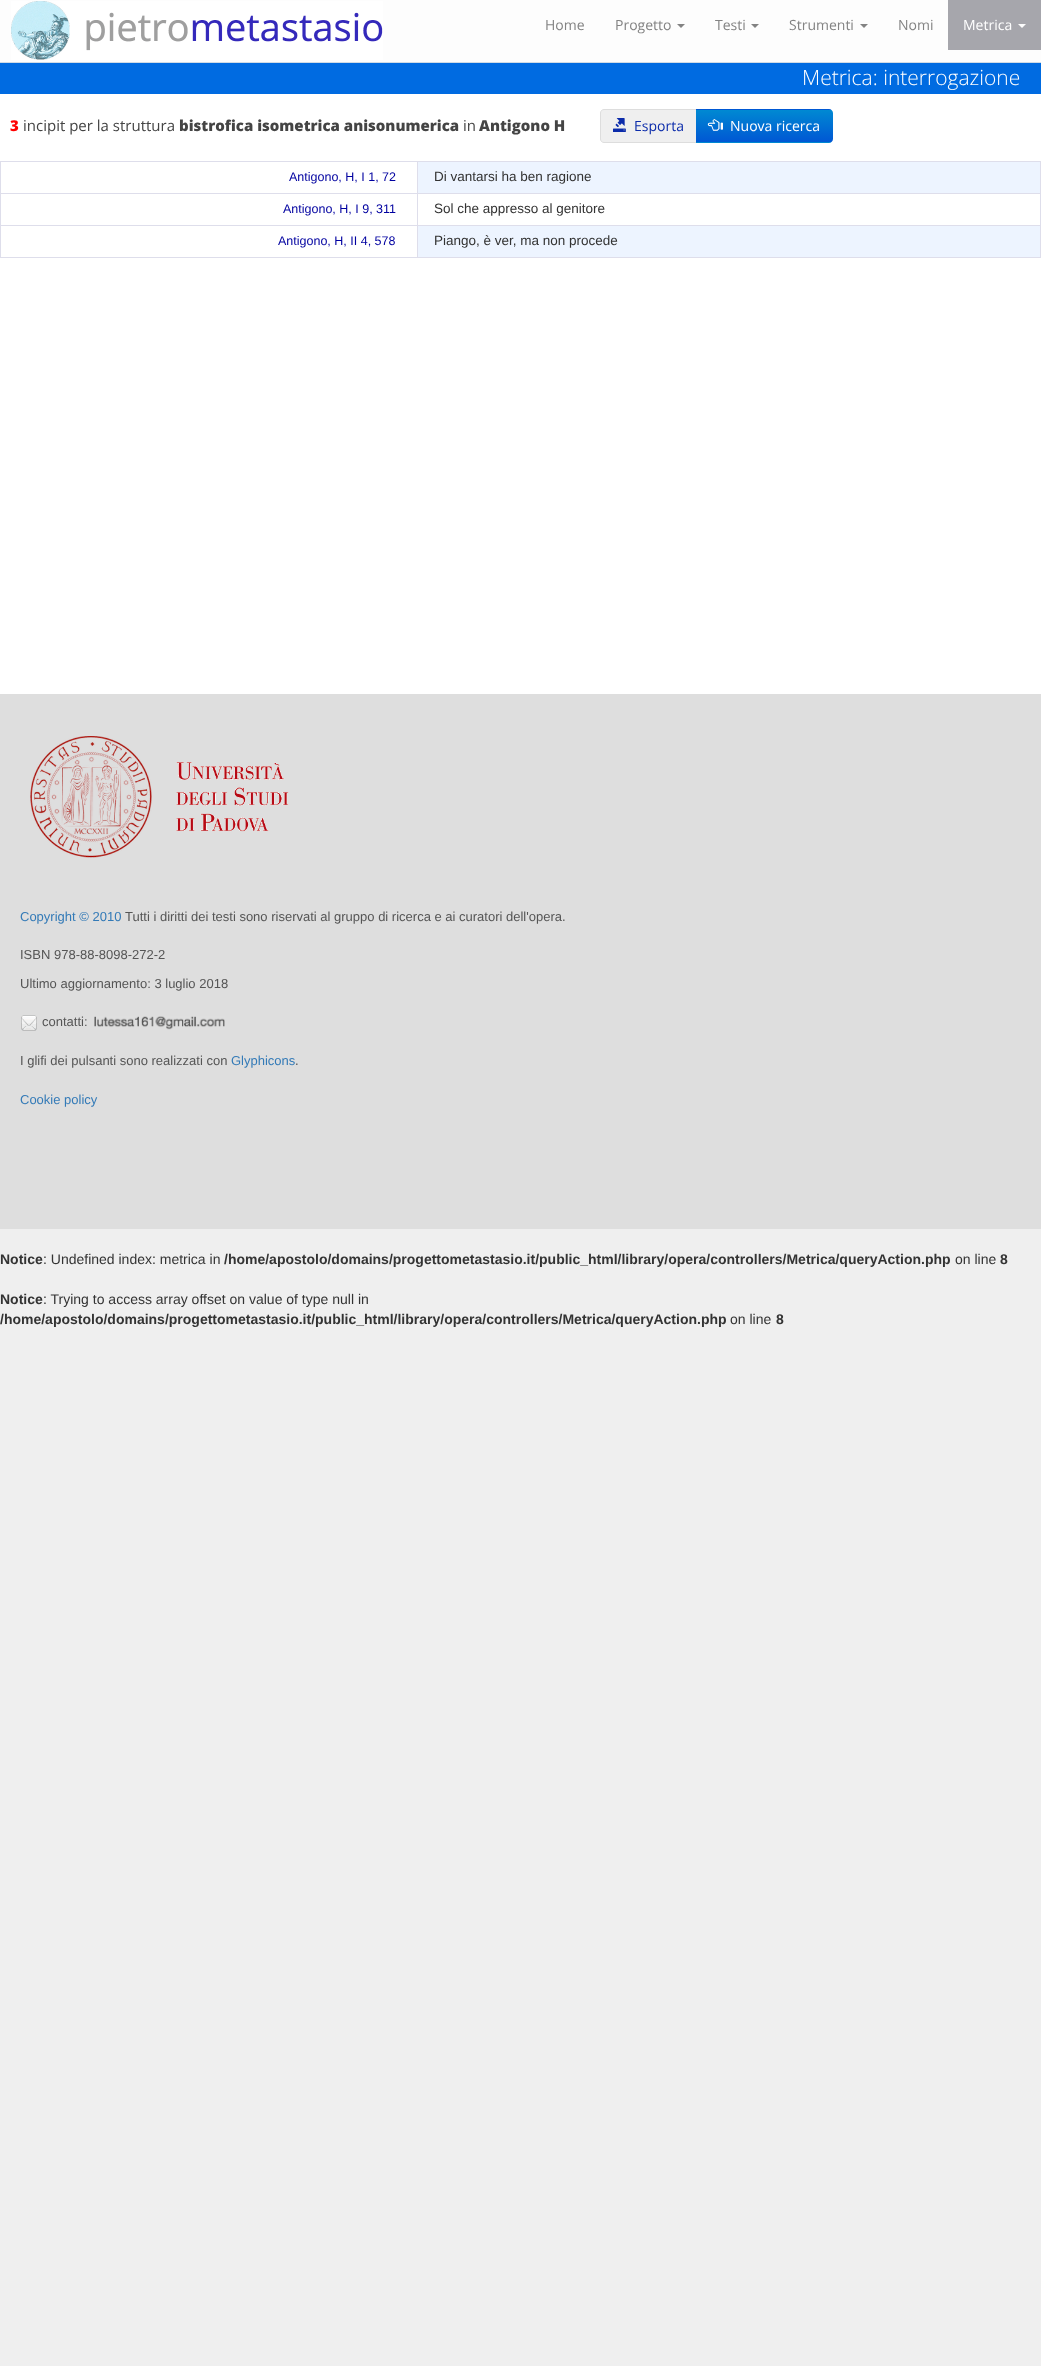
<svg xmlns="http://www.w3.org/2000/svg" width="1041" height="2366" viewBox="0 0 1041 2366">
  <style>
    .t1 { font: 14px Open Sans; fill: #838383; }
    .t2 { font: 14px Open Sans; fill: #fff; }
    .t3 { font: 300 21px Open Sans; fill: #fff; }
    .t4 { font: 800 15px Open Sans; fill: #f00; }
    .t5 { font: 15px Open Sans; fill: #444; }
    .t6 { font: 800 15px Open Sans; fill: #444; }
    .t7 { font: 14px Open Sans; fill: #0b2baa; }
    .t8 { font: 12.5px Liberation Sans; fill: #0000a0; }
    .t9 { font: 13.5px Liberation Sans; fill: #333; }
    .t10 { font: 13px Liberation Sans; fill: #337ab7; }
    .t11 { font: 13px Liberation Sans; fill: #555; }
    .t12 { font: bold 14px Liberation Sans; fill: #333; }
    .t13 { font: 14px Liberation Sans; fill: #333; }
  </style>
  <defs>
    <clipPath id="clip1"><path d="M696 109H829C831 109 833 111 833 113V139C833 141 831 143 829 143H696Z"/></clipPath>
    <linearGradient id="g1" gradientUnits="userSpaceOnUse" x1="765" y1="78" x2="765" y2="110"><stop offset="0" stop-color="#0089d2"/><stop offset="1" stop-color="#0057d4"/></linearGradient>
    <linearGradient id="g2" gradientUnits="userSpaceOnUse" x1="765" y1="110" x2="765" y2="142"><stop offset="0" stop-color="#0089d2"/><stop offset="1" stop-color="#0057d4"/></linearGradient>
    <linearGradient id="g3" gradientUnits="userSpaceOnUse" x1="765" y1="142" x2="765" y2="174"><stop offset="0" stop-color="#0089d2"/><stop offset="1" stop-color="#0057d4"/></linearGradient>
  </defs>
  <rect width="100%" height="100%" fill="#efefef"/>
  <rect x="0" y="0" width="1041" height="62" fill="#fdfdfd"/>
  <rect x="0" y="62" width="1041" height="1" fill="#d0dbe6"/>
  <image x="11" y="1" width="372" height="59" href="images/1.png"/>
  <text x="545" y="30" class="t1">Home</text>
  <text x="615" y="30" class="t1">Progetto</text>
  <path d="M677 24H685L681 28Z" fill="#838383"/>
  <text x="715" y="30" class="t1">Testi</text>
  <path d="M751 24H759L755 28Z" fill="#838383"/>
  <text x="789" y="30" class="t1">Strumenti</text>
  <path d="M860 24H868L864 28Z" fill="#838383"/>
  <text x="898" y="30" class="t1">Nomi</text>
  <rect x="948" y="0" width="93" height="50" fill="#a6a6ac"/>
  <text x="963" y="30" class="t2">Metrica</text>
  <path d="M1018 24H1026L1022 28Z" fill="#fdfdfd"/>
  <rect x="0" y="94" width="1041" height="600" fill="#fff"/>
  <rect x="0" y="63" width="1041" height="31" fill="#006be1"/>
  <text x="802" y="85" class="t3">Metrica: interrogazione</text>
  <text x="10" y="131" class="t4">3</text>
  <text x="23" y="131" class="t5">incipit per la struttura</text>
  <text x="179" y="131" class="t6">bistrofica isometrica anisonumerica</text>
  <text x="463" y="131" class="t5">in</text>
  <text x="479" y="131" class="t6">Antigono H</text>
  <path d="M604 109.5H696.5V142.5H604C602 142.5 600.5 141 600.5 139V113C600.5 111 602 109.5 604 109.5Z" fill="#efefef" stroke="#ddd"/>
  <image x="613" y="118" width="13" height="14" href="images/2.png"/>
  <text x="634" y="131" class="t7">Esporta</text>
  <g clip-path="url(#clip1)">
    <rect x="696" y="109" width="137" height="1" fill="url(#g1)"/>
    <rect x="696" y="110" width="137" height="32" fill="url(#g2)"/>
    <rect x="696" y="142" width="137" height="1" fill="url(#g3)"/>
  </g>
  <image x="707" y="119" width="16" height="12" href="images/3.png"/>
  <text x="730" y="131" class="t2">Nuova ricerca</text>
  <rect x="1040" y="161" width="1" height="97" fill="#dedeeb"/>
  <rect x="0" y="257" width="1041" height="1" fill="#dedeeb"/>
  <rect x="0" y="161" width="1" height="97" fill="#dedeeb"/>
  <rect x="1" y="161" width="1039" height="1" fill="#dedeeb"/>
  <text x="289" y="181" class="t8">Antigono, H, I 1, 72</text>
  <rect x="418" y="162" width="622" height="31" fill="#edf4ff"/>
  <rect x="417" y="162" width="1" height="31" fill="#dedeeb"/>
  <text x="434" y="181" class="t9">Di vantarsi ha ben ragione</text>
  <rect x="1" y="193" width="1039" height="1" fill="#dedeeb"/>
  <text x="283" y="213" class="t8">Antigono, H, I 9, 311</text>
  <rect x="417" y="194" width="1" height="31" fill="#dedeeb"/>
  <text x="434" y="213" class="t9">Sol che appresso al genitore</text>
  <rect x="1" y="225" width="1039" height="1" fill="#dedeeb"/>
  <text x="278" y="245" class="t8">Antigono, H, II 4, 578</text>
  <rect x="418" y="226" width="622" height="31" fill="#edf4ff"/>
  <rect x="417" y="226" width="1" height="31" fill="#dedeeb"/>
  <text x="434" y="245" class="t9">Piango, è ver, ma non procede</text>
  <rect x="0" y="694" width="1041" height="535" fill="#dedede"/>
  <image x="30" y="736" width="259" height="122" href="images/4.png"/>
  <text x="20" y="921" class="t10">Copyright © 2010</text>
  <text x="125" y="921" class="t11">Tutti i diritti dei testi sono riservati al gruppo di ricerca e ai curatori dell'opera.</text>
  <text x="20" y="959" class="t11">ISBN 978-88-8098-272-2</text>
  <text x="20" y="988" class="t11">Ultimo aggiornamento: 3 luglio 2018</text>
  <image x="21" y="1015" width="16" height="16" href="images/5.png"/>
  <text x="42" y="1026" class="t11">contatti:</text>
  <image x="94" y="1016" width="131" height="14" href="images/6.png"/>
  <text x="20" y="1065" class="t11">I glifi dei pulsanti sono realizzati con</text>
  <text x="231" y="1065" class="t10">Glyphicons</text>
  <text x="295" y="1065" class="t11">.</text>
  <text x="20" y="1104" class="t10">Cookie policy</text>
  <text x="0" y="1264" class="t12">Notice</text>
  <text x="43" y="1264" class="t13">: Undefined index: metrica in</text>
  <text x="224" y="1264" class="t12">/home/apostolo/domains/progettometastasio.it/public_html/library/opera/controllers/Metrica/queryAction.php</text>
  <text x="955" y="1264" class="t13">on line</text>
  <text x="1000" y="1264" class="t12">8</text>
  <text x="0" y="1304" class="t12">Notice</text>
  <text x="43" y="1304" class="t13">: Trying to access array offset on value of type null in</text>
  <text x="0" y="1324" class="t12">/home/apostolo/domains/progettometastasio.it/public_html/library/opera/controllers/Metrica/queryAction.php</text>
  <text x="730" y="1324" class="t13">on line</text>
  <text x="776" y="1324" class="t12">8</text>
</svg>
